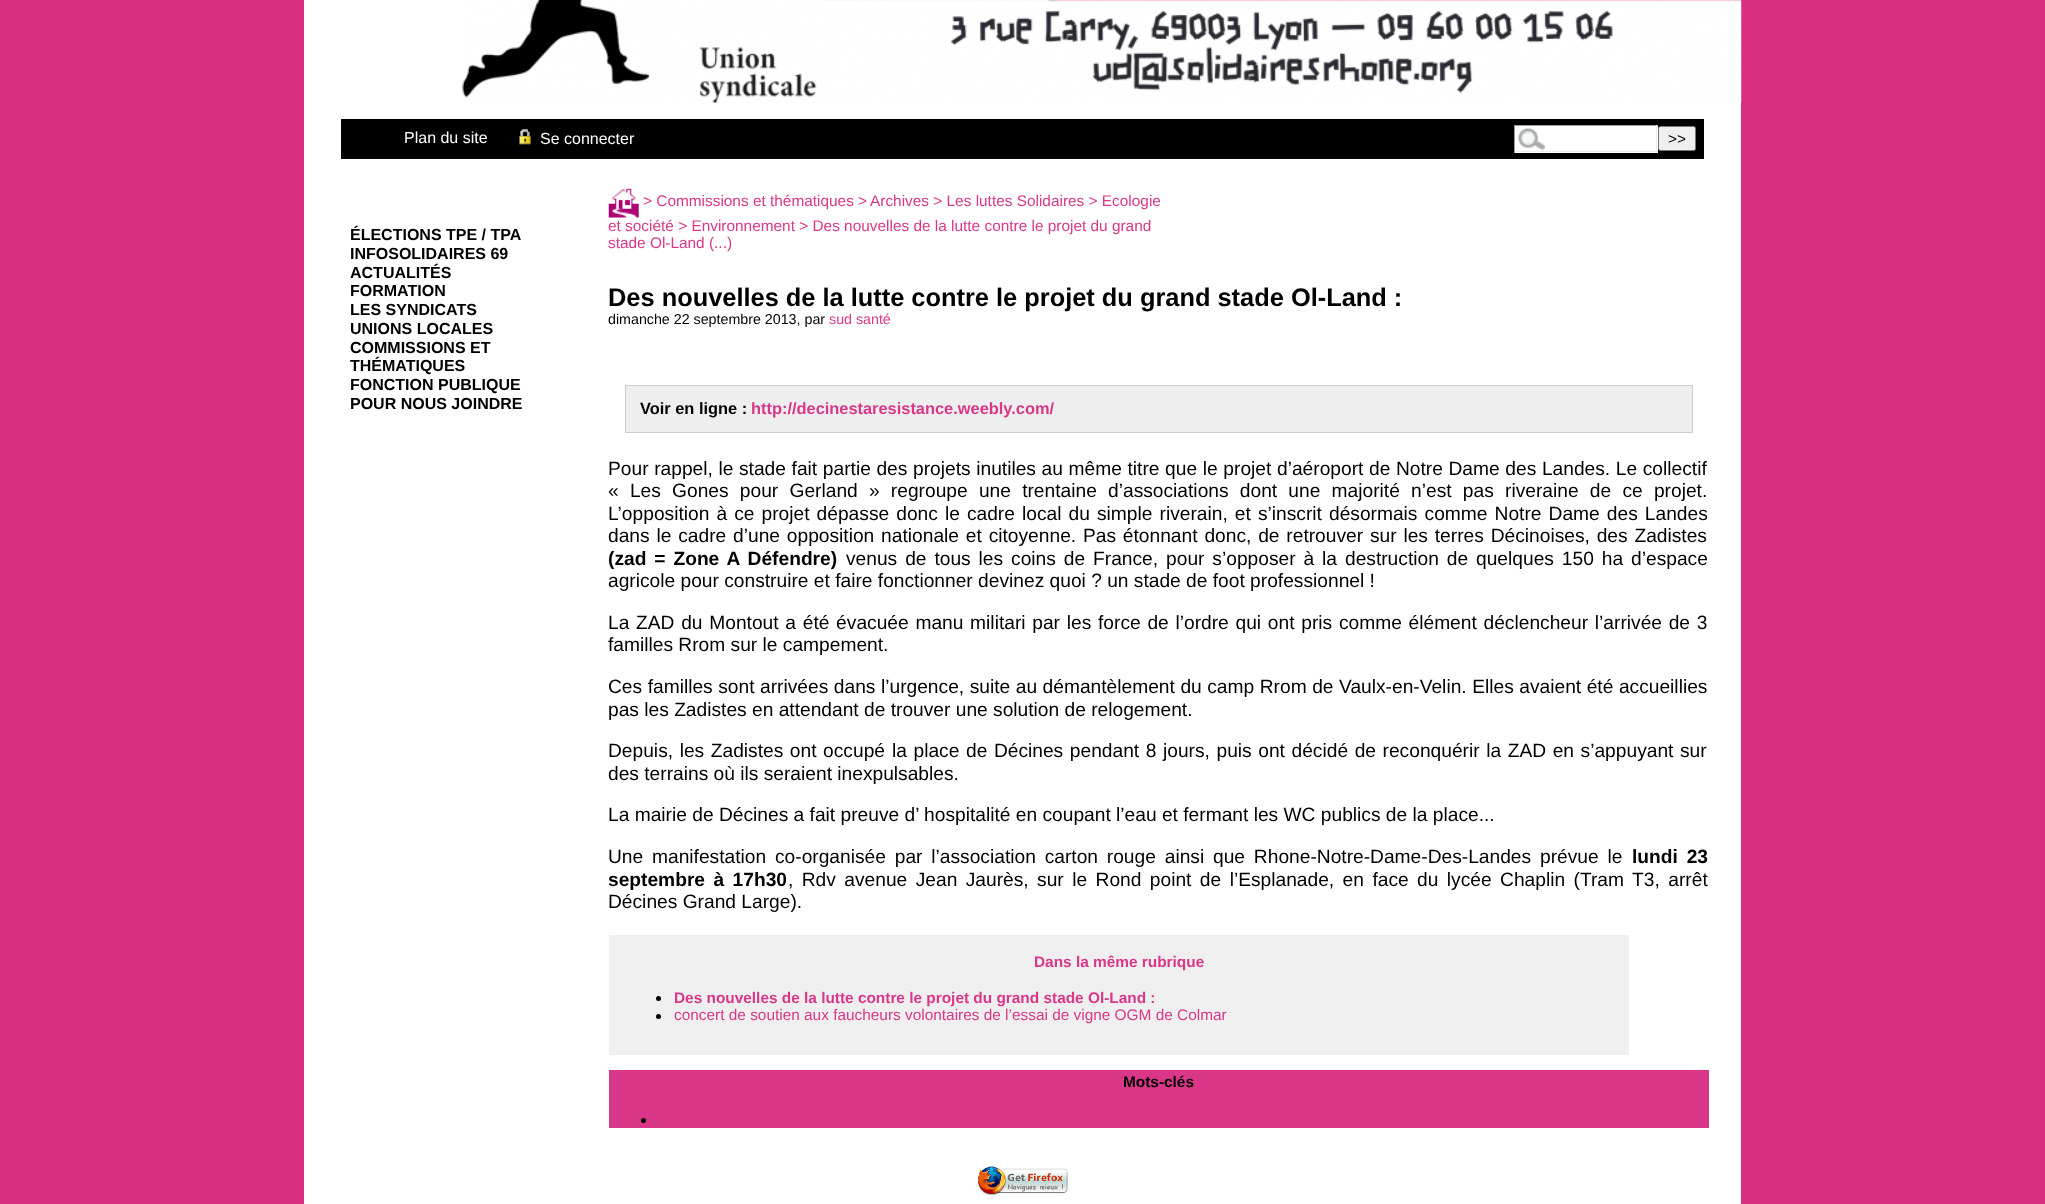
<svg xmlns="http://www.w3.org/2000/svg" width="2045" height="1204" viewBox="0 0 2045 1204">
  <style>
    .t1 { font: 16px Liberation Sans; fill: #fff; }
    .t2 { font: 15.4px Liberation Sans; fill: #000; }
    .t3 { font: bold 16px Liberation Sans; fill: #000; }
    .t4 { font: 15.4px Liberation Sans; fill: #da3789; }
    .t5 { font: bold 25.4px Liberation Sans; fill: #000; }
    .t6 { font: 14.25px Liberation Sans; fill: #000; }
    .t7 { font: 14.25px Liberation Sans; fill: #da3789; }
    .t8 { font: bold 16.4px Liberation Sans; fill: #000; }
    .t9 { font: bold 16.4px Liberation Sans; fill: #da3789; }
    .t10 { font: 19.2px Liberation Sans; fill: #000; }
    .t11 { font: bold 19.2px Liberation Sans; fill: #000; }
    .t12 { font: bold 15.4px Liberation Sans; fill: #da3789; }
    .t13 { font: bold 15.4px Liberation Sans; fill: #000; }
  </style>
  <rect width="100%" height="100%" fill="#d92e83"/>
  <rect x="304" y="0" width="1437" height="1204" fill="#fff"/>
  <image x="462" y="0" width="1280" height="103" href="images/1.png"/>
  <rect x="341" y="119" width="1363" height="40" fill="#000"/>
  <text x="404" y="143" class="t1">Plan du site</text>
  <image x="519" y="129" width="12" height="16" href="images/2.png"/>
  <text x="540" y="144" class="t1">Se connecter</text>
  <rect x="1515" y="126" width="143" height="27" fill="#fff"/>
  <image x="1517" y="127" width="29" height="23" href="images/3.png"/>
  <rect x="1514" y="125" width="144" height="1" fill="#9f9f9f"/>
  <rect x="1656" y="125" width="1" height="28" fill="#eee"/>
  <rect x="1514" y="151" width="144" height="1" fill="#eee"/>
  <rect x="1514" y="125" width="1" height="28" fill="#9f9f9f"/>
  <rect x="1658.5" y="126.5" width="37" height="24" rx="2" fill="#efefef" stroke="#767676"/>
  <text x="1668" y="144" class="t2">&gt;&gt;</text>
  <text x="350" y="240" class="t3">ÉLECTIONS TPE / TPA</text>
  <text x="350" y="259" class="t3">INFOSOLIDAIRES 69</text>
  <text x="350" y="278" class="t3">ACTUALITÉS</text>
  <text x="350" y="296" class="t3">FORMATION</text>
  <text x="350" y="315" class="t3">LES SYNDICATS</text>
  <text x="350" y="334" class="t3">UNIONS LOCALES</text>
  <text x="350" y="353" class="t3">COMMISSIONS ET</text>
  <text x="350" y="371" class="t3">THÉMATIQUES</text>
  <text x="350" y="390" class="t3">FONCTION PUBLIQUE</text>
  <text x="350" y="409" class="t3">POUR NOUS JOINDRE</text>
  <image x="608" y="188" width="31" height="30" href="images/4.png"/>
  <text x="643" y="206" class="t4">&gt; Commissions et thématiques</text>
  <text x="858" y="206" class="t4">&gt;</text>
  <text x="870" y="206" class="t4">Archives &gt; Les luttes Solidaires &gt; Ecologie</text>
  <text x="608" y="231" class="t4">et société &gt; Environnement &gt; Des nouvelles de la lutte contre le projet du grand</text>
  <text x="608" y="248" class="t4">stade Ol-Land (...)</text>
  <text x="608" y="306" class="t5">Des nouvelles de la lutte contre le projet du grand stade Ol-Land :</text>
  <text x="608" y="324" class="t6">dimanche 22 septembre 2013, par</text>
  <text x="829" y="324" class="t7">sud santé</text>
  <rect x="625.5" y="385.5" width="1067" height="47" fill="#eee" stroke="#ccc"/>
  <text x="640" y="414" class="t8">Voir en ligne :</text>
  <text x="751" y="414" class="t9">http://decinestaresistance.weebly.com/</text>
  <text x="608" y="475" word-spacing="0.3" class="t10">Pour rappel, le stade fait partie des projets inutiles au même titre que le projet d’aéroport de Notre Dame des Landes. Le collectif</text>
  <text x="608" y="497" word-spacing="5.9" class="t10">« Les Gones pour Gerland » regroupe une trentaine d’associations dont une majorité n’est pas riveraine de ce projet.</text>
  <text x="608" y="520" word-spacing="1.75" class="t10">L’opposition à ce projet dépasse donc le cadre local du simple riverain, et s’inscrit désormais comme Notre Dame des Landes</text>
  <text x="608" y="542" word-spacing="1.5" class="t10">dans le cadre d’une opposition nationale et citoyenne. Pas étonnant donc, de retrouver sur les terres Décinoises, des Zadistes</text>
  <text x="608" y="565" word-spacing="2.6" class="t11">(zad = Zone A Défendre)</text>
  <text x="846" y="565" word-spacing="2.6" class="t10">venus de tous les coins de France, pour s’opposer à la destruction de quelques 150 ha d’espace</text>
  <text x="608" y="587" class="t10">agricole pour construire et faire fonctionner devinez quoi ? un stade de foot professionnel !</text>
  <text x="608" y="629" word-spacing="1.4" class="t10">La ZAD du Montout a été évacuée manu militari par les force de l’ordre qui ont pris comme élément déclencheur l’arrivée de 3</text>
  <text x="608" y="651" class="t10">familles Rrom sur le campement.</text>
  <text x="608" y="693" word-spacing="0.2" class="t10">Ces familles sont arrivées dans l’urgence, suite au démantèlement du camp Rrom de Vaulx-en-Velin. Elles avaient été accueillies</text>
  <text x="608" y="716" class="t10">pas les Zadistes en attendant de trouver une solution de relogement.</text>
  <text x="608" y="757" word-spacing="1.25" class="t10">Depuis, les Zadistes ont occupé</text>
  <text x="892" y="757" word-spacing="1.25" class="t10">la place de Décines pendant 8 jours, puis ont décidé de reconquérir la ZAD en s’appuyant sur</text>
  <text x="608" y="780" class="t10">des terrains où ils seraient inexpulsables.</text>
  <text x="608" y="821" class="t10">La mairie de Décines a fait preuve d’ hospitalité en coupant l’eau et fermant les WC publics de la place...</text>
  <text x="608" y="863" word-spacing="3.5" class="t10">Une manifestation co-organisée par l’association carton rouge ainsi que Rhone-Notre-Dame-Des-Landes prévue le</text>
  <text x="1632" y="863" word-spacing="3.5" class="t11">lundi 23</text>
  <text x="608" y="886" word-spacing="3.1" class="t11">septembre à 17h30</text>
  <text x="788" y="886" word-spacing="3.1" class="t10">, Rdv avenue Jean Jaurès, sur le Rond point de l’Esplanade, en face du lycée Chaplin (Tram T3, arrêt</text>
  <text x="608" y="908" class="t10">Décines Grand Large).</text>
  <rect x="609" y="935" width="1020" height="120" fill="#efefef"/>
  <text x="1034" y="967" class="t12">Dans la même rubrique</text>
  <circle cx="658.5" cy="998.5" r="2.5" fill="#000"/>
  <text x="674" y="1003" class="t12">Des nouvelles de la lutte contre le projet du grand stade Ol-Land :</text>
  <circle cx="658.5" cy="1016.5" r="2.5" fill="#000"/>
  <text x="674" y="1020" class="t4">concert de soutien aux faucheurs volontaires de l’essai de vigne OGM de Colmar</text>
  <rect x="609" y="1070" width="1100" height="58" fill="#da3789"/>
  <text x="1123" y="1087" class="t13">Mots-clés</text>
  <circle cx="643.5" cy="1120.5" r="2.5" fill="#000"/>
  <image x="978" y="1166" width="90" height="30" href="images/5.png"/>
</svg>
